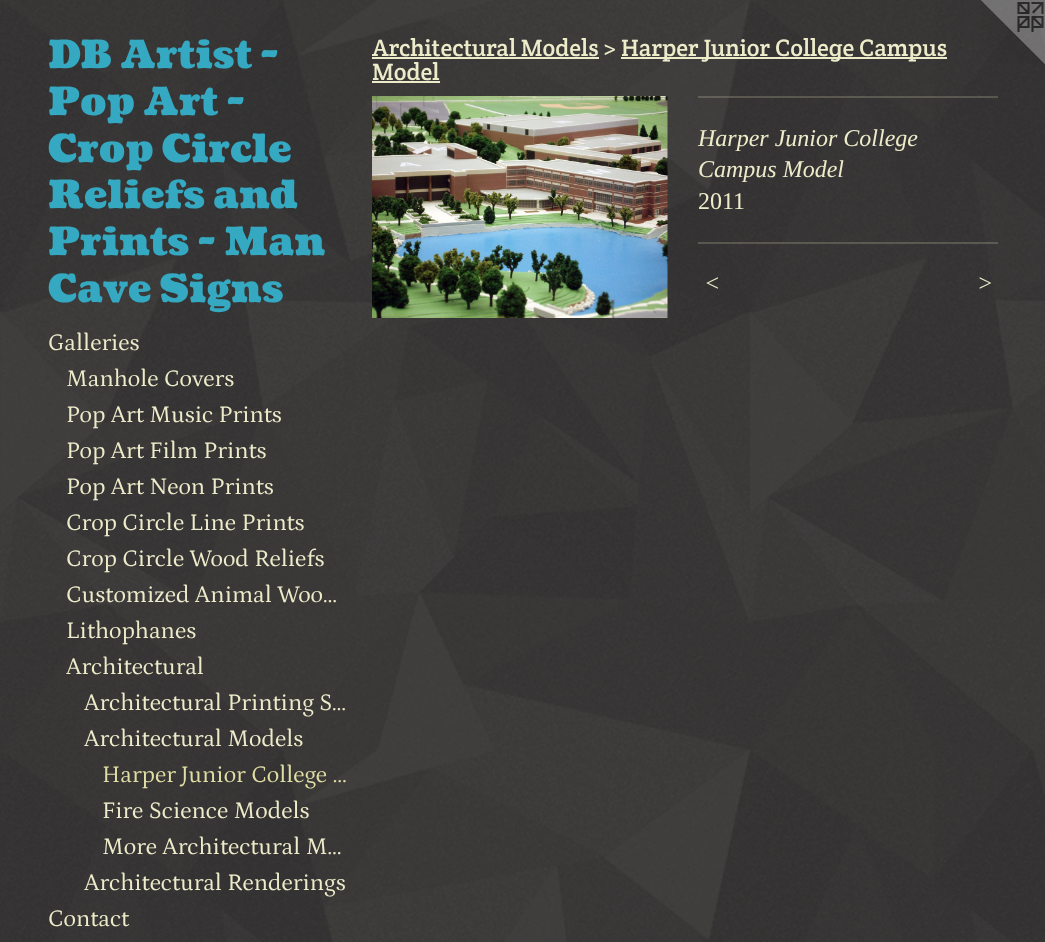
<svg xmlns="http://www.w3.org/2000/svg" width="1045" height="942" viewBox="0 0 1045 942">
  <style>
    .t1 { font: 900 39px Coustard; fill: #34a9c1; }
    .t2 { font: 24px Petrona; fill: #edecca; }
    .t3 { font: 24px Petrona; fill: #e0dea4; }
    .t4 { font: 24px Crete Round; fill: #edecca; }
    .t5 { font: italic 24px Liberation Serif; fill: #edecca; }
    .t6 { font: 24px Liberation Serif; fill: #edecca; }
    .t7 { font: italic 24px Liberation Serif; letter-spacing: 2px; fill: #edecca; }
  </style>
  <rect width="100%" height="100%" fill="#fff"/>
  <image x="0" y="0" width="1045" height="942" href="images/1.png"/>
  <text x="48" y="68" class="t1">DB Artist -</text>
  <text x="48" y="115" class="t1">Pop Art -</text>
  <text x="48" y="162" class="t1">Crop Circle</text>
  <text x="48" y="208" class="t1">Reliefs and</text>
  <text x="48" y="255" class="t1">Prints - Man</text>
  <text x="48" y="302" class="t1">Cave Signs</text>
  <text x="48" y="350" class="t2">Galleries</text>
  <text x="66" y="386" class="t2">Manhole Covers</text>
  <text x="66" y="422" class="t2">Pop Art Music Prints</text>
  <text x="66" y="458" class="t2">Pop Art Film Prints</text>
  <text x="66" y="494" class="t2">Pop Art Neon Prints</text>
  <text x="66" y="530" class="t2">Crop Circle Line Prints</text>
  <text x="66" y="566" class="t2">Crop Circle Wood Reliefs</text>
  <text x="66" y="602" class="t2">Customized Animal Woo…</text>
  <text x="66" y="638" class="t2">Lithophanes</text>
  <text x="66" y="674" class="t2">Architectural</text>
  <text x="84" y="710" class="t2">Architectural Printing S…</text>
  <text x="84" y="746" class="t2">Architectural Models</text>
  <text x="102" y="782" class="t3">Harper Junior College …</text>
  <text x="102" y="818" class="t2">Fire Science Models</text>
  <text x="102" y="854" class="t2">More Architectural M…</text>
  <text x="84" y="890" class="t2">Architectural Renderings</text>
  <text x="48" y="926" class="t2">Contact</text>
  <text x="372" y="56" class="t4">Architectural Models &gt;</text>
  <rect x="372" y="57" width="227" height="2" fill="#edecca"/>
  <rect x="621" y="57" width="326" height="2" fill="#edecca"/>
  <text x="621" y="56" class="t4">Harper Junior College Campus</text>
  <text x="372" y="80" class="t4">Model</text>
  <rect x="372" y="81" width="68" height="2" fill="#edecca"/>
  <image x="372" y="96" width="296" height="222" href="images/2.png"/>
  <rect x="698" y="96" width="300" height="2" fill="#edecca33"/>
  <text x="698" y="146" class="t5">Harper Junior College</text>
  <text x="698" y="177" class="t5">Campus Model</text>
  <text x="698" y="209" class="t6">2011</text>
  <rect x="698" y="242" width="300" height="2" fill="#edecca33"/>
  <text x="704" y="291" class="t7">&lt;</text>
  <text x="977" y="291" class="t7">&gt;</text>
  <image x="981" y="0" width="64" height="64" href="images/3.png"/>
</svg>
